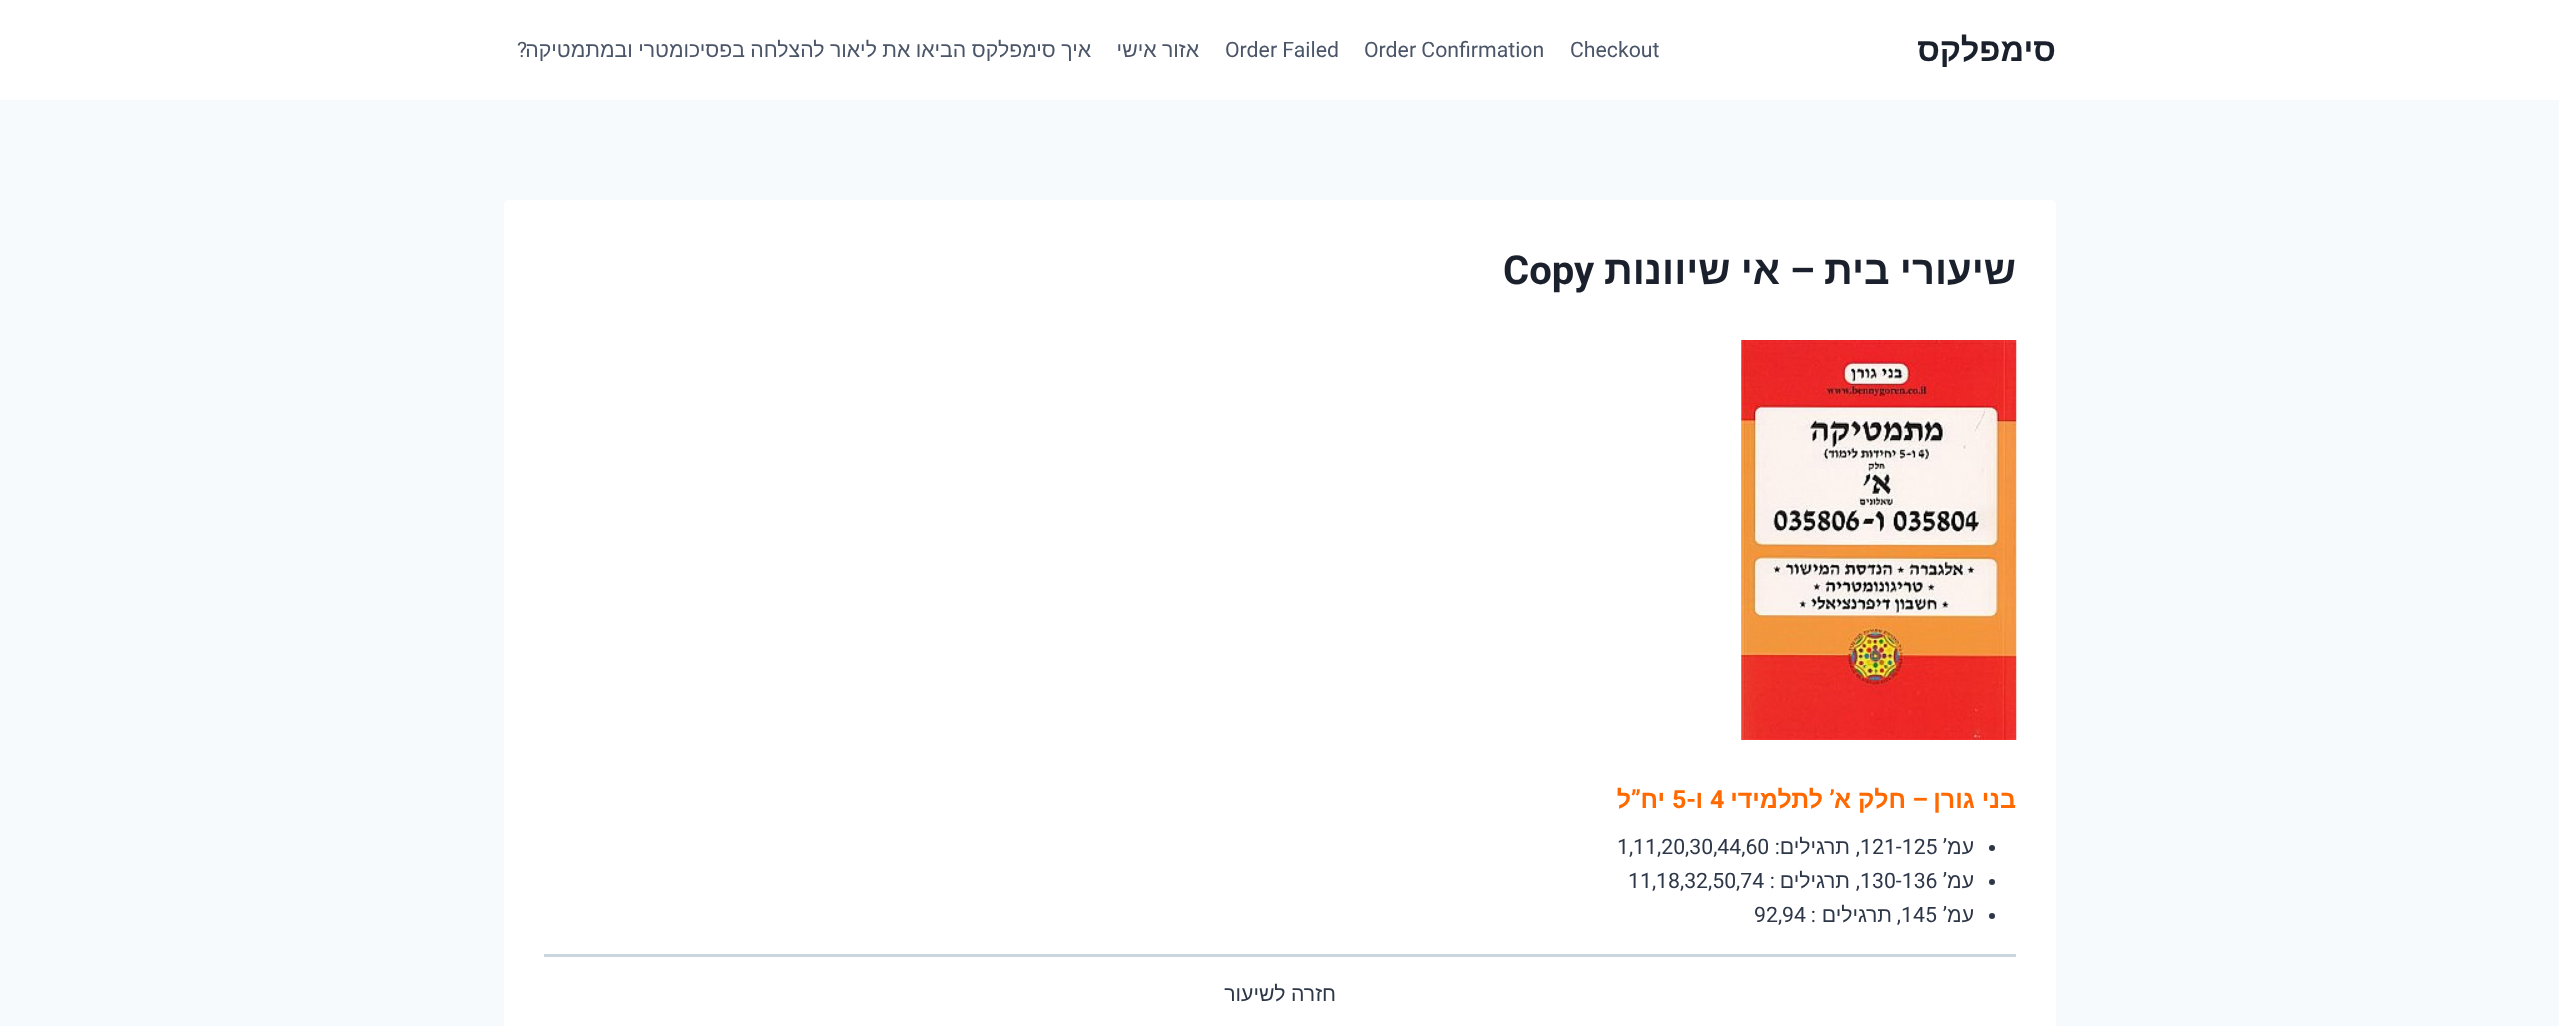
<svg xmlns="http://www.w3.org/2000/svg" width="2559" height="1026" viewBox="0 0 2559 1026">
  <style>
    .t1 { font: bold 32.5px Liberation Sans; direction: rtl; fill: #1a202c; }
    .t2 { font: 21.25px Roboto; fill: #4a5568; }
    .t3 { font: 21.25px Liberation Sans; direction: rtl; fill: #4a5568; }
    .t4 { font: 21.25px Roboto; direction: rtl; fill: #4a5568; }
    .t5 { font: bold 40px Liberation Sans; direction: rtl; fill: #1a202c; }
    .t6 { font: bold 40px Roboto; direction: rtl; fill: #1a202c; }
    .t7 { font: bold 40px Roboto; fill: #1a202c; }
    .t8 { font: bold 25px Liberation Sans; direction: rtl; fill: #ff6900; }
    .t9 { font: bold 25px Roboto; direction: rtl; fill: #ff6900; }
    .t10 { font: bold 25px Roboto; fill: #ff6900; }
    .t11 { font: 21.25px Liberation Sans; direction: rtl; fill: #2d3748; }
    .t12 { font: 21.25px Roboto; direction: rtl; fill: #2d3748; }
    .t13 { font: 21.25px Roboto; fill: #2d3748; }
  </style>
  <rect width="100%" height="100%" fill="#f7fafc"/>
  <rect x="0" y="0" width="2559" height="100" fill="#fff"/>
  <text x="2056" y="61" class="t1">סימפלקס</text>
  <text x="1570" y="57" class="t2">Checkout</text>
  <text x="1364" y="57" class="t2">Order Confirmation</text>
  <text x="1225" y="57" class="t2">Order Failed</text>
  <text x="1199" y="57" word-spacing="-0.5" class="t3">אזור אישי</text>
  <text x="1091" y="57" word-spacing="-0.5" class="t3">איך סימפלקס הביאו את ליאור להצלחה בפסיכומטרי ובמתמטיקה</text>
  <text x="527" y="57" class="t4">?</text>
  <rect x="504" y="200" width="1552" height="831" rx="5" fill="#fff"/>
  <text x="2016" y="284" word-spacing="-1" class="t5">שיעורי בית</text>
  <text x="1815" y="284" class="t6">–</text>
  <text x="1780" y="284" word-spacing="-1" class="t5">אי שיוונות</text>
  <text x="1503" y="284" class="t7">Copy</text>
  <image x="1741" y="340" width="276" height="400" href="images/1.png"/>
  <text x="2016" y="808" class="t8">בני גורן</text>
  <text x="1928" y="808" class="t9">–</text>
  <text x="1906" y="808" class="t8">חלק א</text>
  <text x="1835" y="808" class="t9">’</text>
  <text x="1823" y="808" class="t8">לתלמידי</text>
  <text x="1710" y="808" class="t10">4</text>
  <text x="1703" y="808" class="t8">ו</text>
  <text x="1696" y="808" class="t9">-</text>
  <text x="1672" y="808" class="t10">5</text>
  <text x="1665" y="808" class="t8">יח</text>
  <text x="1641" y="808" class="t9">”</text>
  <text x="1631" y="808" class="t8">ל</text>
  <circle cx="1992" cy="848" r="3" fill="#2d3748"/>
  <text x="1974" y="854" class="t11">עמ</text>
  <text x="1947" y="854" class="t12">’</text>
  <text x="1860" y="854" class="t13">121-125</text>
  <text x="1850" y="854" class="t11">תרגילים</text>
  <text x="1780" y="854" class="t12">:</text>
  <text x="1617" y="854" class="t13">1,11,20,30,44,60</text>
  <text x="1860" y="854" class="t12">,</text>
  <circle cx="1992" cy="882" r="3" fill="#2d3748"/>
  <text x="1974" y="888" class="t11">עמ</text>
  <text x="1947" y="888" class="t12">’</text>
  <text x="1860" y="888" class="t13">130-136</text>
  <text x="1850" y="888" class="t11">תרגילים</text>
  <text x="1775" y="888" class="t12">:</text>
  <text x="1628" y="888" class="t13">11,18,32,50,74</text>
  <text x="1860" y="888" class="t12">,</text>
  <circle cx="1992" cy="916" r="3" fill="#2d3748"/>
  <text x="1974" y="922" class="t11">עמ</text>
  <text x="1947" y="922" class="t12">’</text>
  <text x="1901" y="922" class="t13">145</text>
  <text x="1892" y="922" class="t11">תרגילים</text>
  <text x="1816" y="922" class="t12">:</text>
  <text x="1754" y="922" class="t13">92,94</text>
  <text x="1901" y="922" class="t12">,</text>
  <rect x="544" y="954" width="1472" height="3" fill="#cbd5e0"/>
  <text x="1336" y="1001" word-spacing="-0.5" class="t11">חזרה לשיעור</text>
</svg>
